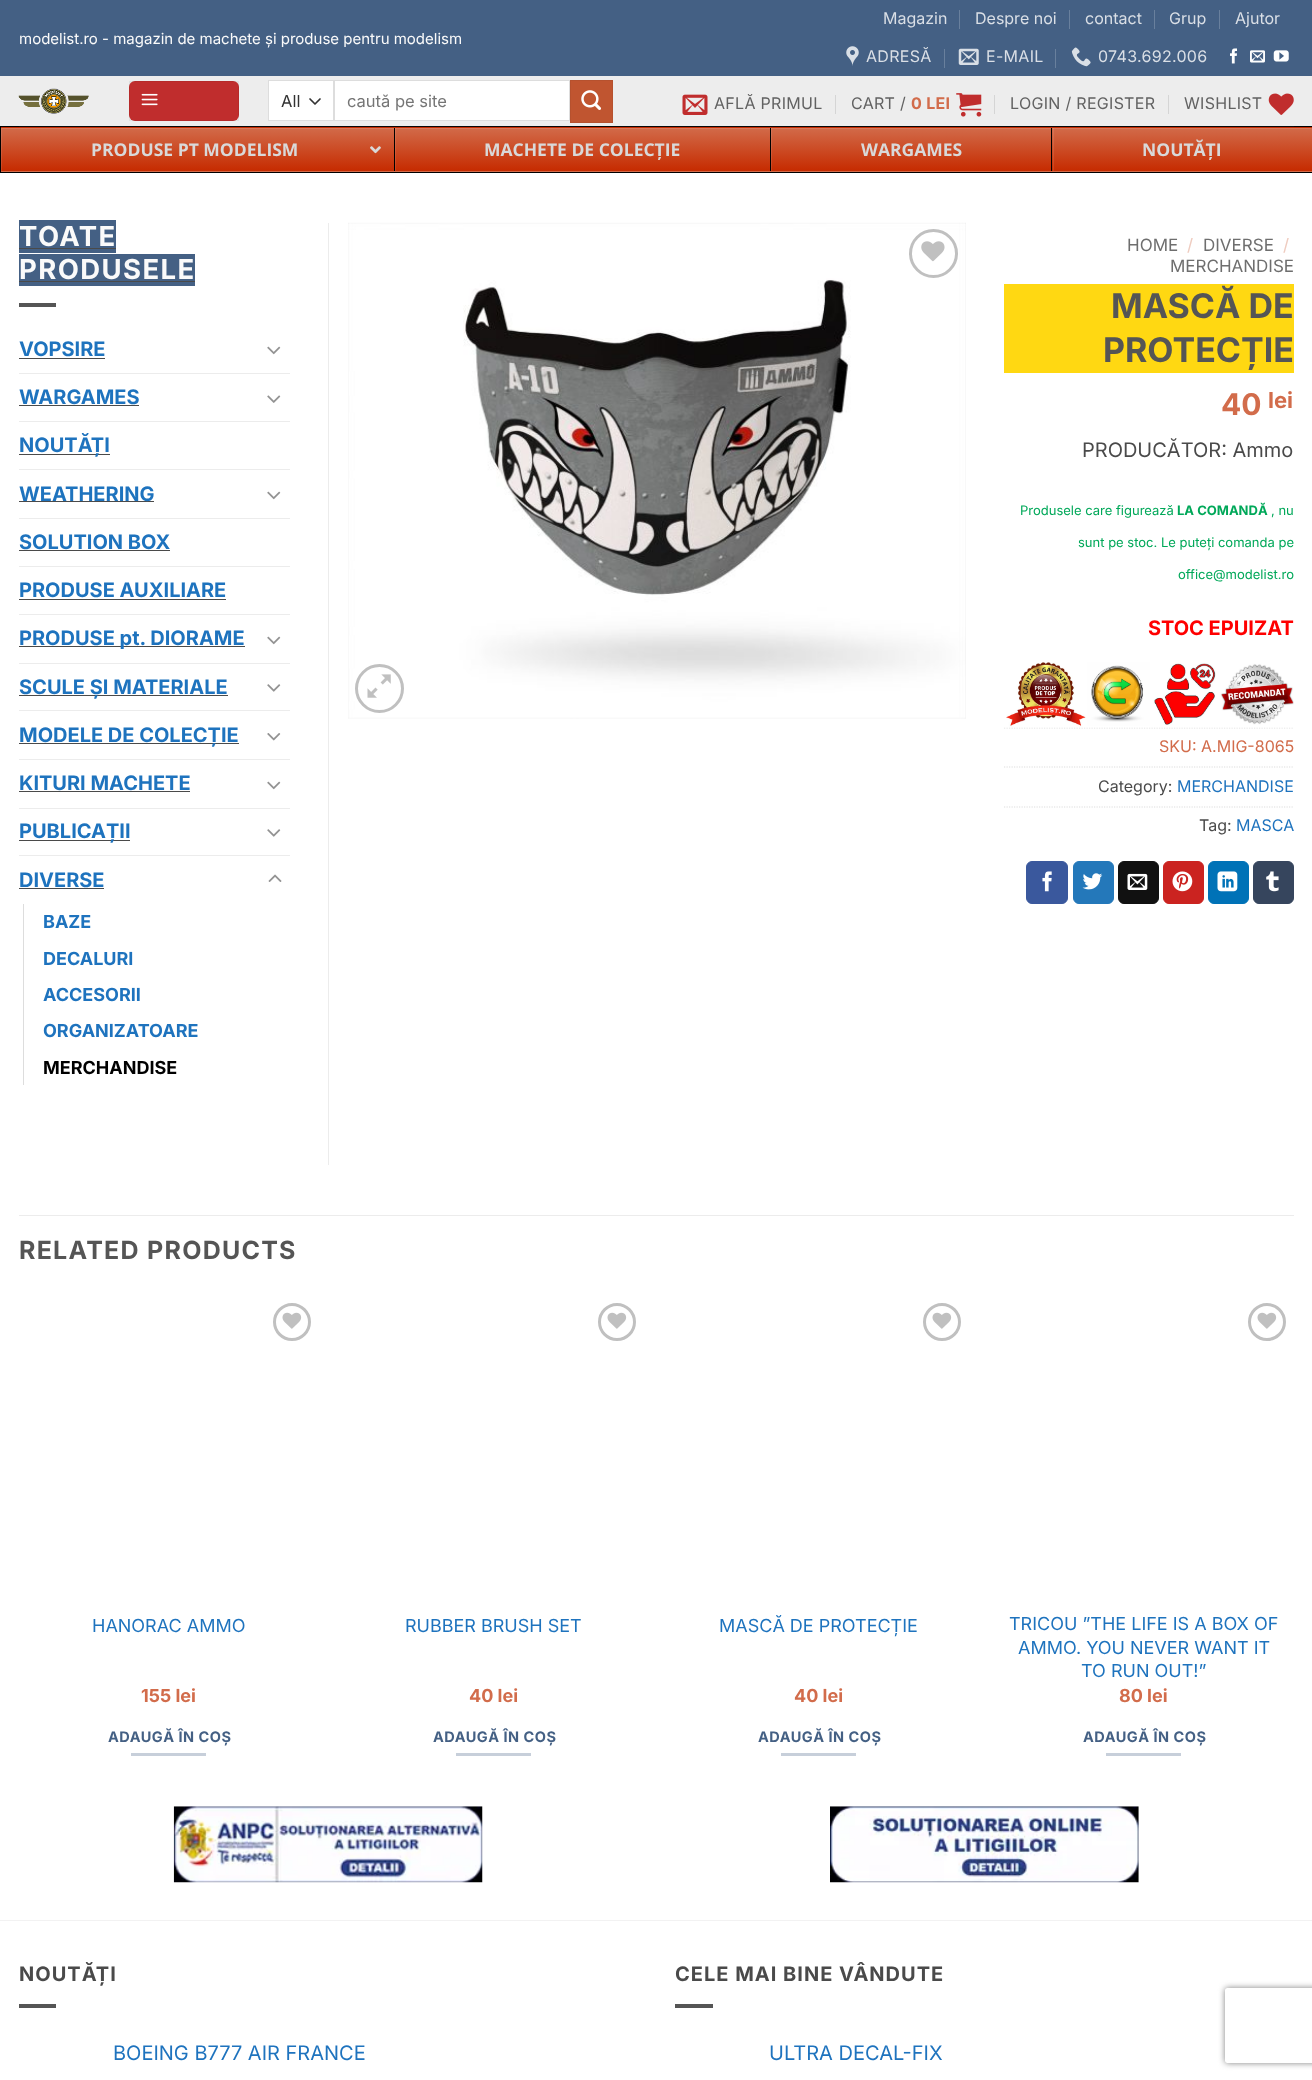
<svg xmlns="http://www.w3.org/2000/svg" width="1312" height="2080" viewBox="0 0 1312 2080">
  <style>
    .t1 { font: 15px Inter; fill: #fafafa; }
    .t2 { font: 16px Inter; fill: #dadfe6; }
    .t3 { font: 16px Inter; letter-spacing: 0.3px; fill: #dadfe6; }
    .t4 { font: 16.5px Inter; fill: #333; }
    .t5 { font: 16.5px Inter; fill: #757575; }
    .t6 { font: 16px Inter; letter-spacing: 0.3px; fill: #626262; }
    .t7 { font: bold 16px Inter; letter-spacing: 0.3px; fill: #d26c4b; }
    .t8 { font: bold 17.5px Open Sans; fill: #d9d9d9; }
    .t9 { font: bold 27.5px Inter; letter-spacing: 1.4px; fill: #fafafa; }
    .t10 { font: bold 20px Inter; fill: #1e73be; }
    .t11 { font: bold 18px Inter; fill: #1e73be; }
    .t12 { font: bold 18px Inter; fill: #000; }
    .t13 { font: 17px Inter; fill: #6e6e6e; }
    .t14 { font: 17px Inter; fill: #efccc0; }
    .t15 { font: bold 34px Inter; fill: #555; }
    .t16 { font: bold 30px Inter; fill: #d26c4b; }
    .t17 { font: bold 22px Inter; fill: #d26c4b; }
    .t18 { font: 20px Inter; fill: #4a4a4a; }
    .t19 { font: 13px Inter; fill: #00a859; }
    .t20 { font: bold 13px Inter; fill: #00a859; }
    .t21 { font: bold 20px Inter; fill: #f00; }
    .t22 { font: 16px Inter; fill: #d26c4b; }
    .t23 { font: 16px Inter; fill: #4a4a4a; }
    .t24 { font: 16px Inter; fill: #1e73be; }
    .t25 { font: bold 25px Inter; letter-spacing: 1.25px; fill: #555; }
    .t26 { font: 18px Inter; fill: #1e73be; }
    .t27 { font: bold 18px Inter; fill: #d26c4b; }
    .t28 { font: bold 14.5px Inter; letter-spacing: 0.5px; fill: #446084; }
    .t29 { font: bold 20px Inter; letter-spacing: 1px; fill: #4a4a4a; }
    .t30 { font: 20px Inter; fill: #1e73be; }
  </style>
  <defs>
    <linearGradient id="g1" gradientUnits="userSpaceOnUse" x1="656" y1="84" x2="656" y2="128"><stop offset="0" stop-color="#d26c4b"/><stop offset="1" stop-color="#c62b00"/></linearGradient>
    <linearGradient id="g2" gradientUnits="userSpaceOnUse" x1="656" y1="127" x2="656" y2="171"><stop offset="0" stop-color="#d26c4b"/><stop offset="1" stop-color="#c62b00"/></linearGradient>
    <linearGradient id="g3" gradientUnits="userSpaceOnUse" x1="656" y1="171" x2="656" y2="215"><stop offset="0" stop-color="#d26c4b"/><stop offset="1" stop-color="#c62b00"/></linearGradient>
    <clipPath id="clip1"><rect x="1" y="128" width="1310" height="43"/></clipPath>
    <clipPath id="clip2"><path d="M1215 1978H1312V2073H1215ZM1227.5 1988H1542.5C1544 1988 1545 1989 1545 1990.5V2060.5C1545 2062 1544 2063 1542.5 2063H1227.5C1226 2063 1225 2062 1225 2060.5V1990.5C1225 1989 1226 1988 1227.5 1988Z" clip-rule="evenodd"/></clipPath>
  </defs>
  <rect width="100%" height="100%" fill="#fff"/>
  <rect x="0" y="0" width="1312" height="76" fill="#446084"/>
  <text x="19" y="44" class="t1">modelist.ro - magazin de machete și produse pentru modelism</text>
  <text x="883" y="24" class="t2">Magazin</text>
  <rect x="959" y="10" width="1" height="19" fill="#69809d"/>
  <text x="975" y="24" class="t2">Despre noi</text>
  <rect x="1069" y="10" width="1" height="19" fill="#69809d"/>
  <text x="1085" y="24" class="t2">contact</text>
  <rect x="1154" y="10" width="1" height="19" fill="#69809d"/>
  <text x="1169" y="24" class="t2">Grup</text>
  <rect x="1219" y="10" width="1" height="19" fill="#69809d"/>
  <text x="1235" y="24" class="t2">Ajutor</text>
  <image x="846" y="46" width="13" height="20" href="images/1.png"/>
  <text x="866" y="62" class="t3">ADRESĂ</text>
  <rect x="944" y="49" width="1" height="19" fill="#69809d"/>
  <image x="958" y="48" width="21" height="17" href="images/2.png"/>
  <text x="986" y="62" class="t3">E-MAIL</text>
  <rect x="1055" y="49" width="1" height="19" fill="#69809d"/>
  <image x="1071" y="47" width="20" height="20" href="images/3.png"/>
  <text x="1098" y="62" class="t3">0743.692.006</text>
  <image x="1230" y="48" width="7" height="16" href="images/4.png"/>
  <image x="1250" y="50" width="15" height="13" href="images/5.png"/>
  <image x="1273" y="50" width="16" height="12" href="images/6.png"/>
  <rect x="0" y="76" width="1312" height="50" fill="#ededed"/>
  <image x="18" y="88" width="71" height="26" href="images/7.png"/>
  <rect x="129" y="81" width="110" height="40" rx="6" fill="#c02d2d"/>
  <rect x="129.5" y="81.5" width="109" height="39" fill="none" stroke="#0000000d"/>
  <image x="141" y="93" width="17" height="13" href="images/8.png"/>
  <rect x="269" y="81" width="64" height="39" fill="#fff"/>
  <path d="M310 99L315 104L320 99" fill="none" stroke="#333" stroke-width="1.7" stroke-linecap="round" stroke-linejoin="round"/>
  <rect x="268.5" y="80.5" width="65" height="40" fill="none" stroke="#ddd"/>
  <text x="281" y="107" class="t4">All</text>
  <rect x="334.5" y="80.5" width="235" height="40" fill="#fff" stroke="#ddd"/>
  <text x="347" y="107" class="t5">caută pe site</text>
  <rect x="570.5" y="80.5" width="42" height="42" fill="#c05530" stroke="#b6512e"/>
  <image x="581" y="90" width="20" height="20" href="images/9.png"/>
  <image x="682" y="94" width="26" height="21" href="images/10.png"/>
  <text x="714" y="109" class="t6">AFLĂ PRIMUL</text>
  <rect x="835" y="95" width="1" height="19" fill="#d5d5d5"/>
  <text x="851" y="109" class="t6">CART /</text>
  <text x="911" y="109" class="t7">0 LEI</text>
  <image x="956" y="93" width="26" height="24" href="images/11.png"/>
  <rect x="994" y="95" width="1" height="19" fill="#d5d5d5"/>
  <text x="1010" y="109" class="t6">LOGIN / REGISTER</text>
  <rect x="1168" y="95" width="1" height="19" fill="#d5d5d5"/>
  <text x="1184" y="109" class="t6">WISHLIST</text>
  <image x="1268" y="93" width="26" height="22" href="images/12.png"/>
  <rect x="0" y="127" width="1312" height="1" fill="url(#g1)"/>
  <rect x="1" y="128" width="1311" height="43" fill="url(#g2)"/>
  <rect x="0" y="171" width="1312" height="1" fill="url(#g3)"/>
  <g clip-path="url(#clip1)">
    <path d="M-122 4H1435V295H-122ZM2 129H1312V172H2Z" fill="#ffffff1a" fill-rule="evenodd"/>
  </g>
  <rect x="0.5" y="126.5" width="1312" height="46" fill="none" stroke="#000"/>
  <rect x="19" y="126" width="1275" height="1" fill="#070707"/>
  <text x="91" y="156" class="t8">PRODUSE PT MODELISM</text>
  <image x="370" y="146" width="11" height="8" href="images/13.png"/>
  <rect x="395" y="128" width="1" height="43" fill="#ffffff1a"/>
  <rect x="394" y="128" width="1" height="43" fill="#000"/>
  <text x="484" y="156" class="t8">MACHETE DE COLECȚIE</text>
  <rect x="771" y="128" width="1" height="43" fill="#ffffff1a"/>
  <rect x="770" y="128" width="1" height="43" fill="#000"/>
  <text x="861" y="156" class="t8">WARGAMES</text>
  <rect x="1053" y="128" width="1" height="43" fill="#ffffff1a"/>
  <rect x="1051" y="128" width="1" height="43" fill="#000"/>
  <text x="1142" y="156" class="t8">NOUTĂȚI</text>
  <rect x="328" y="223" width="1" height="942" fill="#ececec"/>
  <rect x="19" y="220" width="97" height="33" fill="#446084"/>
  <text x="19" y="246" class="t9">TOATE</text>
  <rect x="19" y="248" width="97" height="1" fill="#4a4a4a"/>
  <rect x="19" y="254" width="176" height="32" fill="#446084"/>
  <text x="19" y="279" class="t9">PRODUSELE</text>
  <rect x="19" y="281" width="176" height="1" fill="#4a4a4a"/>
  <rect x="19" y="303" width="37" height="4" fill="#555"/>
  <text x="19" y="356" class="t10">VOPSIRE</text>
  <rect x="19" y="358" width="86" height="1" fill="#4a4a4a"/>
  <image x="267" y="346" width="14" height="9" href="images/14.png"/>
  <rect x="19" y="373" width="271" height="1" fill="#ececec"/>
  <text x="19" y="404" class="t10">WARGAMES</text>
  <rect x="19" y="405" width="120" height="1" fill="#4a4a4a"/>
  <image x="267" y="395" width="14" height="8" href="images/15.png"/>
  <rect x="19" y="421" width="271" height="1" fill="#ececec"/>
  <rect x="19" y="454" width="91" height="1" fill="#4a4a4a"/>
  <text x="19" y="452" class="t10">NOUTĂȚI</text>
  <rect x="19" y="469" width="271" height="1" fill="#ececec"/>
  <rect x="19" y="501" width="135" height="1" fill="#4a4a4a"/>
  <text x="19" y="501" class="t10">WEATHERING</text>
  <image x="267" y="491" width="14" height="9" href="images/14.png"/>
  <rect x="19" y="518" width="271" height="1" fill="#ececec"/>
  <text x="19" y="549" class="t10">SOLUTION BOX</text>
  <rect x="19" y="550" width="151" height="1" fill="#4a4a4a"/>
  <rect x="19" y="566" width="271" height="1" fill="#ececec"/>
  <text x="19" y="597" class="t10">PRODUSE AUXILIARE</text>
  <rect x="19" y="599" width="207" height="1" fill="#4a4a4a"/>
  <rect x="19" y="614" width="271" height="1" fill="#ececec"/>
  <rect x="19" y="646" width="226" height="1" fill="#4a4a4a"/>
  <text x="19" y="645" class="t10">PRODUSE pt. DIORAME</text>
  <image x="267" y="636" width="14" height="9" href="images/14.png"/>
  <rect x="19" y="663" width="271" height="1" fill="#ececec"/>
  <rect x="19" y="695" width="209" height="1" fill="#4a4a4a"/>
  <text x="19" y="694" class="t10">SCULE ȘI MATERIALE</text>
  <image x="267" y="684" width="14" height="8" href="images/16.png"/>
  <rect x="19" y="710" width="271" height="1" fill="#ececec"/>
  <rect x="19" y="743" width="220" height="1" fill="#4a4a4a"/>
  <text x="19" y="742" class="t10">MODELE DE COLECȚIE</text>
  <image x="267" y="733" width="14" height="8" href="images/17.png"/>
  <rect x="19" y="759" width="271" height="1" fill="#ececec"/>
  <text x="19" y="790" class="t10">KITURI MACHETE</text>
  <rect x="19" y="791" width="171" height="1" fill="#4a4a4a"/>
  <image x="267" y="781" width="14" height="9" href="images/14.png"/>
  <rect x="19" y="808" width="271" height="1" fill="#ececec"/>
  <rect x="19" y="840" width="111" height="1" fill="#4a4a4a"/>
  <text x="19" y="838" class="t10">PUBLICAȚII</text>
  <image x="267" y="829" width="14" height="8" href="images/16.png"/>
  <rect x="19" y="855" width="271" height="1" fill="#ececec"/>
  <text x="19" y="887" class="t10">DIVERSE</text>
  <rect x="19" y="888" width="85" height="1" fill="#4a4a4a"/>
  <image x="268" y="874" width="14" height="8" href="images/18.png"/>
  <rect x="23" y="904" width="1" height="181" fill="#ddd"/>
  <text x="43" y="928" class="t11">BAZE</text>
  <text x="43" y="965" class="t11">DECALURI</text>
  <text x="43" y="1001" class="t11">ACCESORII</text>
  <text x="43" y="1037" class="t11">ORGANIZATOARE</text>
  <text x="43" y="1074" class="t12">MERCHANDISE</text>
  <image x="348" y="222" width="618" height="497" href="images/19.png"/>
  <circle cx="933.5" cy="253.5" r="23" fill="none" stroke="#c0c0c0" stroke-width="3"/>
  <image x="921" y="241" width="24" height="21" href="images/20.png"/>
  <circle cx="379.5" cy="688.5" r="23" fill="none" stroke="#c0c0c0" stroke-width="3"/>
  <image x="367" y="674" width="24" height="24" href="images/21.png"/>
  <text x="1127" y="251" class="t13">HOME</text>
  <text x="1187" y="251" class="t14">/</text>
  <text x="1203" y="251" class="t13">DIVERSE</text>
  <text x="1283" y="251" class="t14">/</text>
  <text x="1170" y="272" class="t13">MERCHANDISE</text>
  <rect x="1004" y="284" width="290" height="89" fill="#ffd812"/>
  <text x="1111" y="318" class="t15">MASCĂ DE</text>
  <text x="1103" y="362" class="t15">PROTECȚIE</text>
  <text x="1221" y="415" class="t16">40</text>
  <text x="1268" y="408" class="t17">lei</text>
  <text x="1082" y="457" class="t18">PRODUCĂTOR: Ammo</text>
  <text x="1020" y="515" class="t19">Produsele care figurează</text>
  <text x="1177" y="515" class="t20">LA COMANDĂ</text>
  <text x="1271" y="515" class="t19">, nu</text>
  <text x="1078" y="547" class="t19">sunt pe stoc. Le puteți comanda pe</text>
  <text x="1178" y="579" class="t19">office@modelist.ro</text>
  <text x="1148" y="635" class="t21">STOC EPUIZAT</text>
  <path d="M1004 728H1294" fill="none" stroke="#ddd" stroke-width="1.2" stroke-dasharray="1.25 1.25"/>
  <image x="1004" y="662" width="290" height="66" href="images/22.png"/>
  <text x="1159" y="752" class="t22">SKU: A.MIG-8065</text>
  <path d="M1004 767H1294" fill="none" stroke="#ddd" stroke-width="1.2" stroke-dasharray="1.25 1.25"/>
  <text x="1098" y="792" class="t23">Category:</text>
  <text x="1177" y="792" class="t24">MERCHANDISE</text>
  <path d="M1004 807H1294" fill="none" stroke="#ddd" stroke-width="1.2" stroke-dasharray="1.25 1.25"/>
  <text x="1199" y="831" class="t23">Tag:</text>
  <text x="1236" y="831" class="t24">MASCA</text>
  <rect x="1026.5" y="861.5" width="41" height="42" rx="5.5" fill="#3a589d" stroke="#3a589d"/>
  <image x="1042" y="871" width="10" height="21" href="images/23.png"/>
  <rect x="1073.5" y="861.5" width="40" height="42" rx="5.5" fill="#2478ba" stroke="#2478ba"/>
  <image x="1082" y="873" width="21" height="17" href="images/24.png"/>
  <rect x="1118.5" y="861.5" width="40" height="42" rx="5.5" fill="#111" stroke="#111"/>
  <image x="1127" y="873" width="21" height="17" href="images/25.png"/>
  <rect x="1163.5" y="861.5" width="40" height="42" rx="5.5" fill="#cb2320" stroke="#cb2320"/>
  <image x="1172" y="871" width="21" height="21" href="images/26.png"/>
  <rect x="1208.5" y="861.5" width="40" height="42" rx="5.5" fill="#0072b7" stroke="#0072b7"/>
  <image x="1217" y="871" width="21" height="21" href="images/27.png"/>
  <rect x="1253.5" y="861.5" width="40" height="42" rx="5.5" fill="#36455d" stroke="#36455d"/>
  <image x="1266" y="871" width="13" height="21" href="images/28.png"/>
  <rect x="19" y="1215" width="1275" height="1" fill="#ececec"/>
  <text x="19" y="1259" class="t25">RELATED PRODUCTS</text>
  <circle cx="292" cy="1322" r="17.5" fill="none" stroke="#c0c0c0" stroke-width="3"/>
  <image x="282" y="1312" width="20" height="17" href="images/29.png"/>
  <text x="92" y="1632" class="t26">HANORAC AMMO</text>
  <text x="141" y="1702" class="t27">155 lei</text>
  <text x="108" y="1742" class="t28">ADAUGĂ ÎN COȘ</text>
  <rect x="131" y="1753" width="75" height="3" fill="#c7cfda"/>
  <circle cx="617" cy="1322" r="17.5" fill="none" stroke="#c0c0c0" stroke-width="3"/>
  <image x="607" y="1312" width="20" height="17" href="images/29.png"/>
  <text x="405" y="1632" class="t26">RUBBER BRUSH SET</text>
  <text x="469" y="1702" class="t27">40 lei</text>
  <text x="433" y="1742" class="t28">ADAUGĂ ÎN COȘ</text>
  <rect x="456" y="1753" width="75" height="3" fill="#c7cfda"/>
  <circle cx="942" cy="1322" r="17.5" fill="none" stroke="#c0c0c0" stroke-width="3"/>
  <image x="932" y="1312" width="20" height="17" href="images/29.png"/>
  <text x="719" y="1632" class="t26">MASCĂ DE PROTECȚIE</text>
  <text x="794" y="1702" class="t27">40 lei</text>
  <text x="758" y="1742" class="t28">ADAUGĂ ÎN COȘ</text>
  <rect x="781" y="1753" width="75" height="3" fill="#c7cfda"/>
  <circle cx="1267" cy="1322" r="17.5" fill="none" stroke="#c0c0c0" stroke-width="3"/>
  <image x="1257" y="1312" width="20" height="17" href="images/29.png"/>
  <text x="1009" y="1630" class="t26">TRICOU ”THE LIFE IS A BOX OF</text>
  <text x="1018" y="1654" class="t26">AMMO. YOU NEVER WANT IT</text>
  <text x="1081" y="1677" class="t26">TO RUN OUT!”</text>
  <text x="1119" y="1702" class="t27">80 lei</text>
  <text x="1083" y="1742" class="t28">ADAUGĂ ÎN COȘ</text>
  <rect x="1106" y="1753" width="75" height="3" fill="#c7cfda"/>
  <image x="173" y="1806" width="310" height="77" href="images/30.png"/>
  <image x="830" y="1806" width="309" height="77" href="images/31.png"/>
  <rect x="0" y="1920" width="1312" height="1" fill="#f2f2f2"/>
  <text x="19" y="1981" class="t29">NOUTĂȚI</text>
  <rect x="19" y="2004" width="37" height="4" fill="#555"/>
  <text x="113" y="2060" class="t30">BOEING B777 AIR FRANCE</text>
  <text x="675" y="1981" class="t29">CELE MAI BINE VÂNDUTE</text>
  <rect x="675" y="2004" width="38" height="4" fill="#555"/>
  <text x="769" y="2060" class="t30">ULTRA DECAL-FIX</text>
  <g clip-path="url(#clip2)">
    <rect x="1225" y="1988" width="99" height="75" rx="2.5" fill="#808080" filter="blur(3px)"/>
  </g>
</svg>
